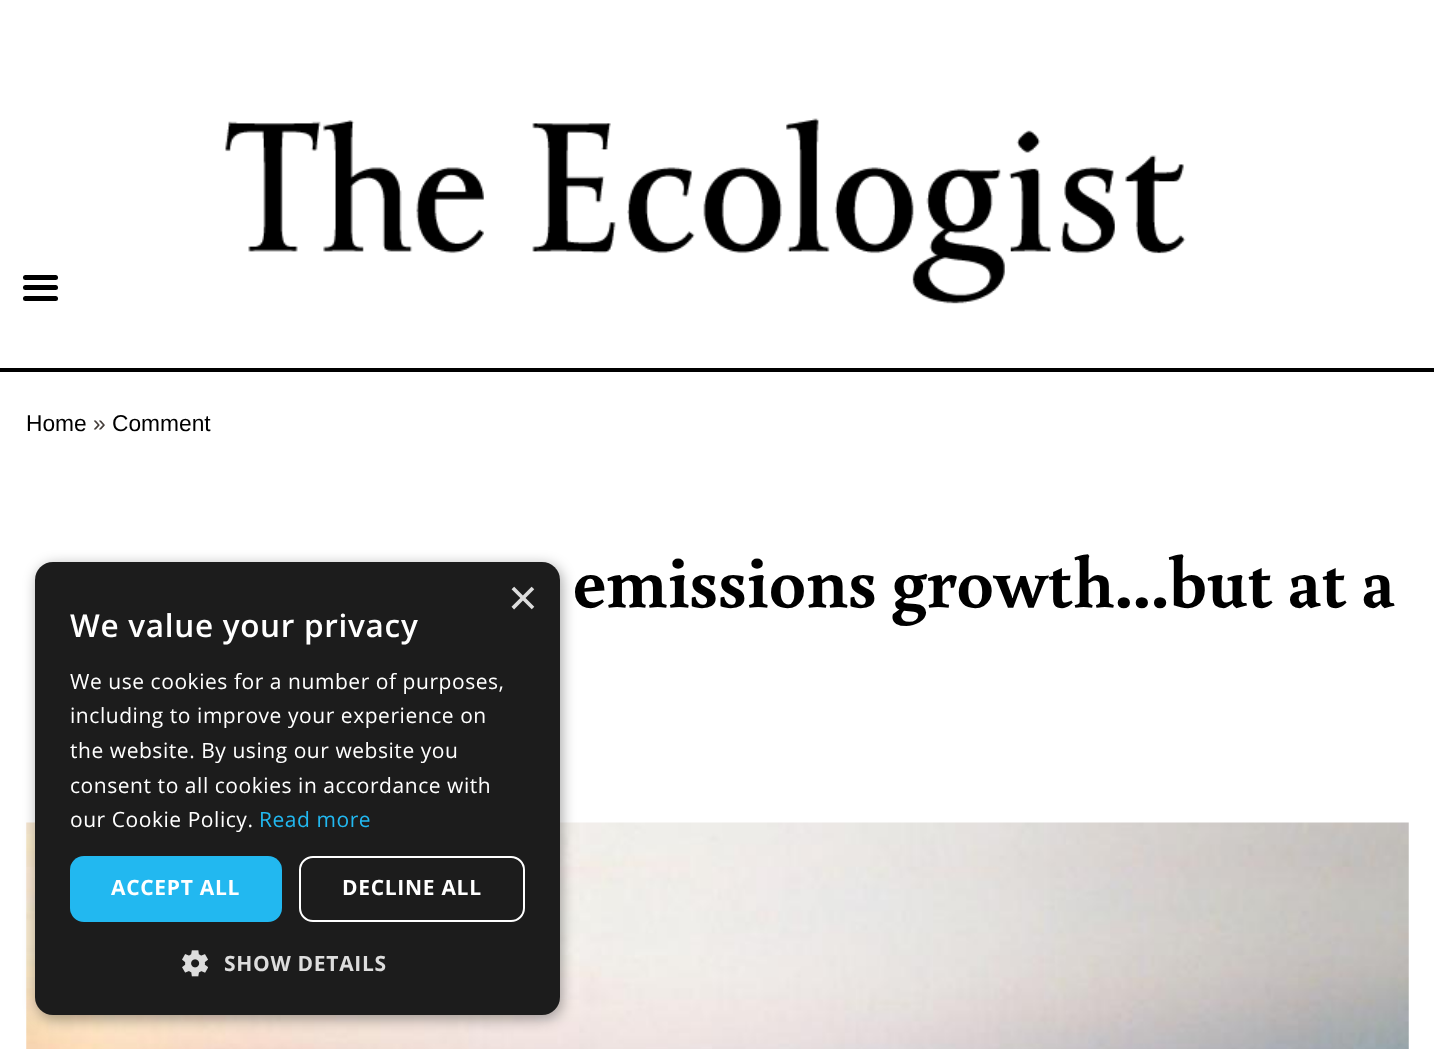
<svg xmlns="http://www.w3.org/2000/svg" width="1434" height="1049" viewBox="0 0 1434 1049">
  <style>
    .t1 { font: 22.75px Liberation Sans; fill: #000; }
    .t2 { font: 22.75px Liberation Sans; fill: #443d39; }
    .t3 { font: bold 73.5px Buenard; fill: #000; }
    .t4 { font: 51px Liberation Sans; fill: #ddd; }
    .t5 { font: 600 31.5px Open Sans; letter-spacing: 0.7px; fill: #fff; }
    .t6 { font: 21px Open Sans; letter-spacing: 0.55px; fill: #fff; }
    .t7 { font: 21px Open Sans; letter-spacing: 0.55px; fill: #22b8f0; }
    .t8 { font: bold 21px Open Sans; letter-spacing: 0.7px; fill: #fff; }
    .t9 { font: bold 21px Open Sans; letter-spacing: 0.7px; fill: #ddd; }
  </style>
  <rect width="100%" height="100%" fill="#fff"/>
  <rect x="23" y="275" width="35" height="5" rx="2.5" fill="#000"/>
  <rect x="23" y="285" width="35" height="5" rx="2.5" fill="#000"/>
  <rect x="23" y="296" width="35" height="5" rx="2.5" fill="#000"/>
  <image x="225" y="118" width="961" height="186" href="images/1.png"/>
  <rect x="0" y="368" width="1434" height="4" fill="#000"/>
  <text x="26" y="431" class="t1">Home</text>
  <text x="93" y="431" class="t2">»</text>
  <text x="112" y="431" class="t1">Comment</text>
  <text x="573" y="607" class="t3">emissions growth...but at a</text>
  <image x="26" y="822" width="1383" height="227" href="images/2.png"/>
  <rect x="37" y="565" width="525" height="454" rx="18" fill="#00000059" filter="blur(7px)"/>
  <rect x="35" y="562" width="525" height="453" rx="18" fill="#1c1c1c"/>
  <text x="508" y="615" class="t4">×</text>
  <text x="70" y="637" class="t5">We value your privacy</text>
  <text x="70" y="689" class="t6">We use cookies for a number of purposes,</text>
  <text x="70" y="723" class="t6">including to improve your experience on</text>
  <text x="70" y="758" class="t6">the website. By using our website you</text>
  <text x="70" y="793" class="t6">consent to all cookies in accordance with</text>
  <text x="70" y="827" class="t6">our Cookie Policy.</text>
  <text x="259" y="827" class="t7">Read more</text>
  <rect x="70" y="856" width="212" height="66" rx="14" fill="#22b8f0"/>
  <text x="111" y="895" class="t8">ACCEPT ALL</text>
  <rect x="300" y="857" width="224" height="64" rx="13" fill="none" stroke="#fff" stroke-width="2"/>
  <text x="342" y="895" class="t8">DECLINE ALL</text>
  <image x="182" y="950" width="26" height="27" href="images/3.png"/>
  <text x="224" y="971" class="t9">SHOW DETAILS</text>
</svg>
